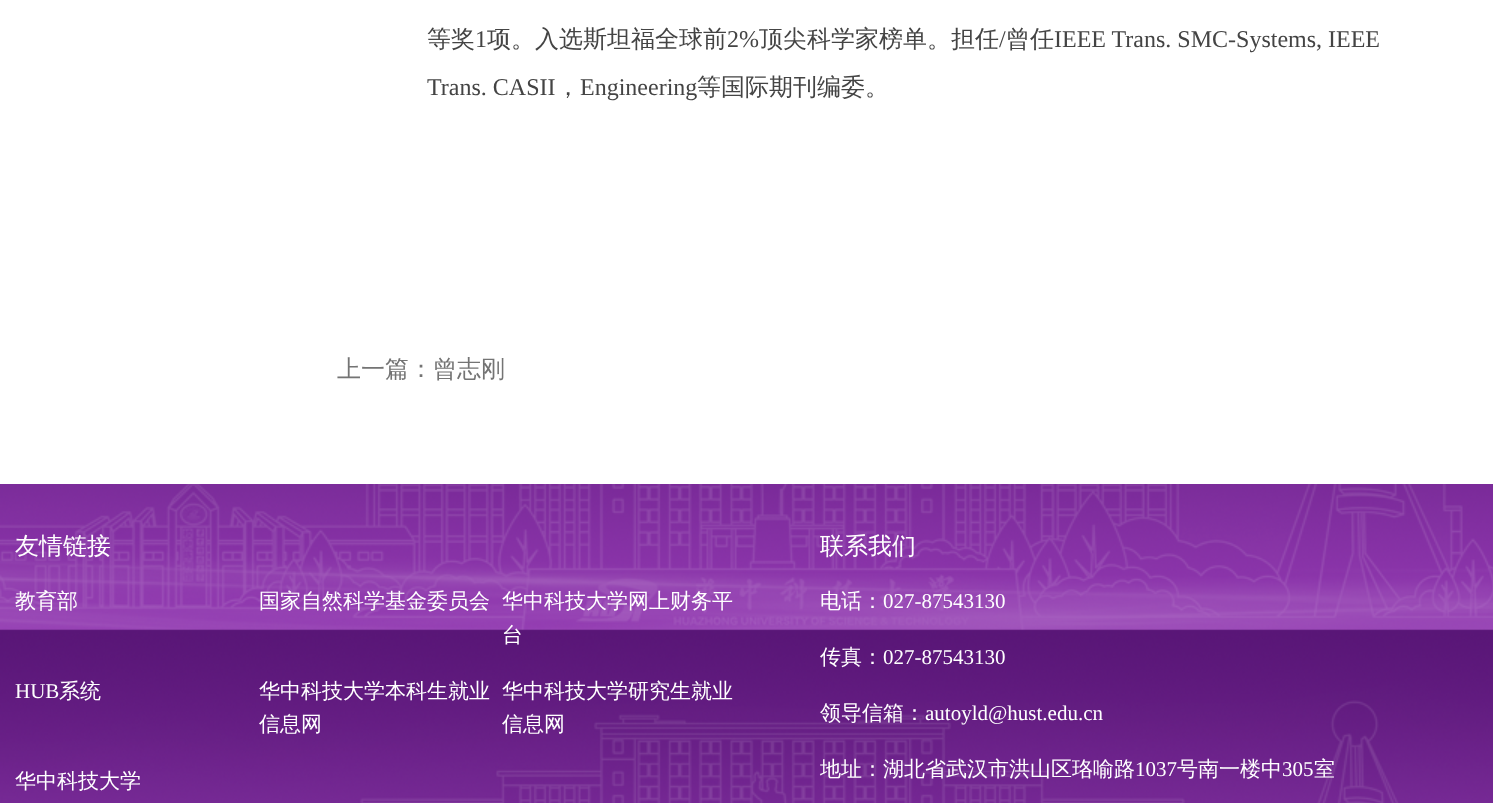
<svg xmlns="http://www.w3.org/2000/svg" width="1493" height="803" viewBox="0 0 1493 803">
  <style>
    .t1 { font: 500 24px WenQuanYi Zen Hei; fill: #444; }
    .t2 { font: 24px Liberation Serif; fill: #444; }
    .t3 { font: 500 24px WenQuanYi Zen Hei; fill: #747474; }
    .t4 { font: 500 24px WenQuanYi Zen Hei; fill: #fff; }
    .t5 { font: 500 21px WenQuanYi Zen Hei; fill: #fff; }
    .t6 { font: 21px Liberation Serif; fill: #fff; }
  </style>
  <rect width="100%" height="100%" fill="#fff"/>
  <text x="427" y="47" class="t1">等奖</text>
  <text x="475" y="47" class="t2">1</text>
  <text x="487" y="47" class="t1">项。入选斯坦福全球前</text>
  <text x="727" y="47" class="t2">2%</text>
  <text x="759" y="47" class="t1">顶尖科学家榜单。担任</text>
  <text x="999" y="47" class="t2">/</text>
  <text x="1006" y="47" class="t1">曾任</text>
  <text x="1054" y="47" class="t2">IEEE Trans. SMC-Systems, IEEE</text>
  <text x="427" y="95" class="t2">Trans. CASII</text>
  <text x="556" y="95" class="t1">，</text>
  <text x="580" y="95" class="t2">Engineering</text>
  <text x="697" y="95" class="t1">等国际期刊编委。</text>
  <text x="337" y="377" class="t3">上一篇：曾志刚</text>
  <image x="0" y="484" width="1493" height="319" href="images/1.png"/>
  <text x="15" y="554" class="t4">友情链接</text>
  <text x="15" y="608" class="t5">教育部</text>
  <text x="259" y="608" class="t5">国家自然科学基金委员会</text>
  <text x="502" y="608" class="t5">华中科技大学网上财务平</text>
  <text x="502" y="642" class="t5">台</text>
  <text x="15" y="698" class="t6">HUB</text>
  <text x="59" y="698" class="t5">系统</text>
  <text x="259" y="698" class="t5">华中科技大学本科生就业</text>
  <text x="259" y="731" class="t5">信息网</text>
  <text x="502" y="698" class="t5">华中科技大学研究生就业</text>
  <text x="502" y="731" class="t5">信息网</text>
  <text x="15" y="788" class="t5">华中科技大学</text>
  <text x="820" y="554" class="t4">联系我们</text>
  <text x="820" y="608" class="t5">电话：</text>
  <text x="883" y="608" class="t6">027-87543130</text>
  <text x="820" y="664" class="t5">传真：</text>
  <text x="883" y="664" class="t6">027-87543130</text>
  <text x="820" y="720" class="t5">领导信箱：</text>
  <text x="925" y="720" class="t6">autoyld@hust.edu.cn</text>
  <text x="820" y="776" class="t5">地址：湖北省武汉市洪山区珞喻路</text>
  <text x="1135" y="776" class="t6">1037</text>
  <text x="1177" y="776" class="t5">号南一楼中</text>
  <text x="1282" y="776" class="t6">305</text>
  <text x="1314" y="776" class="t5">室</text>
</svg>
